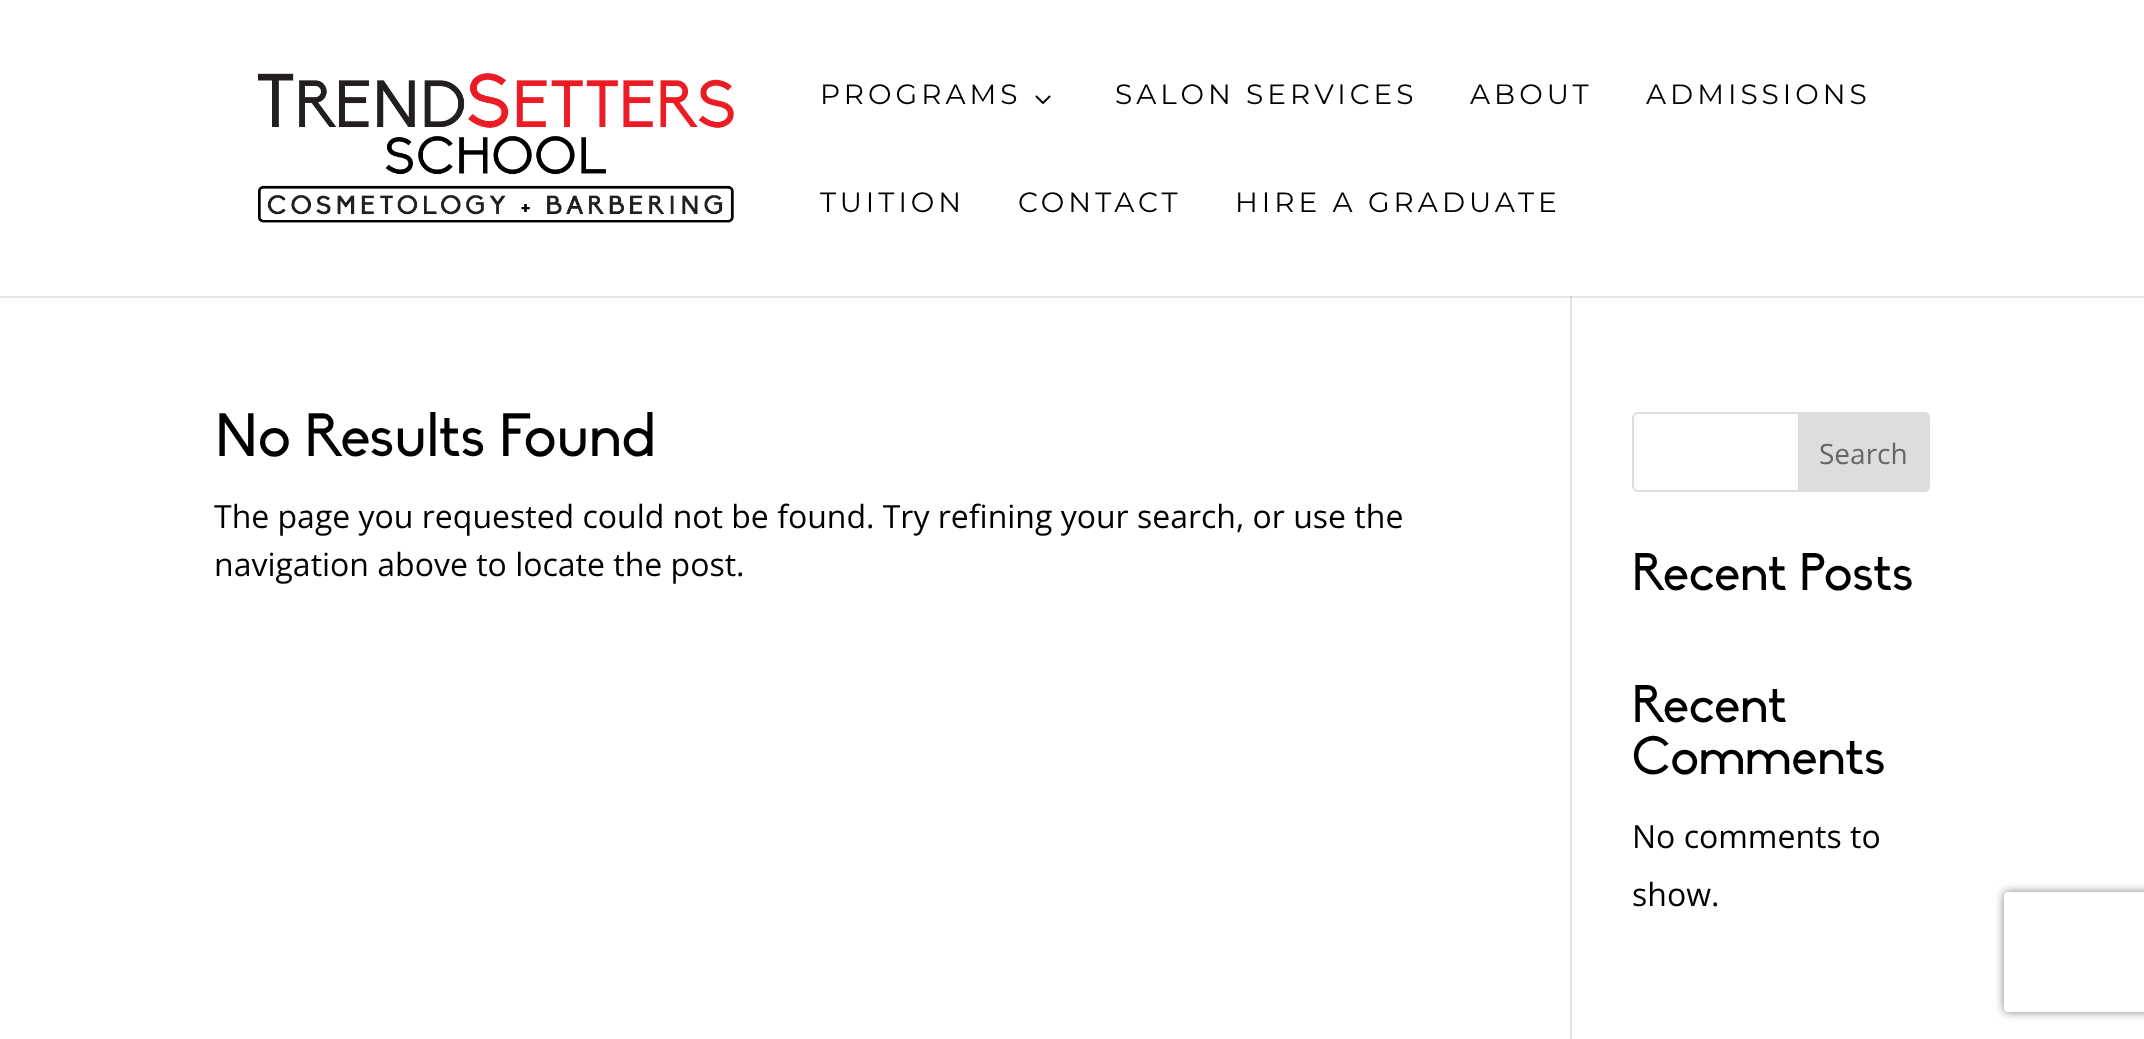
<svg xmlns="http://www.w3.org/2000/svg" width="2144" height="1039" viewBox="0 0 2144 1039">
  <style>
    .t1 { font: 28px Montserrat; letter-spacing: 4px; fill: #000; }
    .t2 { font: 60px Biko; fill: #000; }
    .t3 { font: 32px Open Sans; fill: #000; }
    .t4 { font: 28px Open Sans; fill: #666; }
    .t5 { font: 52px Biko; fill: #000; }
  </style>
  <defs>
    <clipPath id="clip1"><path d="M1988 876H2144V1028H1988ZM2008 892H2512C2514 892 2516 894 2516 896V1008C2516 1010 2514 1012 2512 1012H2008C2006 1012 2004 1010 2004 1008V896C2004 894 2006 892 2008 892Z" clip-rule="evenodd"/></clipPath>
  </defs>
  <rect width="100%" height="100%" fill="#fff"/>
  <rect x="0" y="296" width="2144" height="2" fill="#e6e6e6"/>
  <image x="257" y="73" width="477" height="150" href="images/1.png"/>
  <text x="820" y="104" class="t1">PROGRAMS</text>
  <image x="1035" y="95" width="16" height="9" href="images/2.png"/>
  <text x="1115" y="104" class="t1">SALON SERVICES</text>
  <text x="1470" y="104" class="t1">ABOUT</text>
  <text x="1646" y="104" class="t1">ADMISSIONS</text>
  <text x="820" y="212" class="t1">TUITION</text>
  <text x="1018" y="212" class="t1">CONTACT</text>
  <text x="1235" y="212" class="t1">HIRE A GRADUATE</text>
  <rect x="1570" y="296" width="2" height="743" fill="#e2e2e2"/>
  <rect x="1570" y="296" width="2" height="2" fill="#cbcbcb"/>
  <text x="214" y="456" class="t2">No Results Found</text>
  <text x="214" y="528" class="t3">The page you requested could not be found. Try refining your search, or use the</text>
  <text x="214" y="576" class="t3">navigation above to locate the post.</text>
  <rect x="1633" y="413" width="296" height="78" rx="5" fill="none" stroke="#ddd" stroke-width="2"/>
  <path d="M1799 413H1924C1927 413 1929 415 1929 418V486C1929 489 1927 491 1924 491H1799Z" fill="#ddd" stroke="#ddd" stroke-width="2"/>
  <text x="1819" y="464" class="t4">Search</text>
  <text x="1632" y="590" class="t5">Recent Posts</text>
  <text x="1632" y="722" class="t5">Recent</text>
  <text x="1632" y="774" class="t5">Comments</text>
  <text x="1632" y="848" class="t3">No comments to</text>
  <text x="1632" y="906" class="t3">show.</text>
  <g clip-path="url(#clip1)">
    <rect x="2004" y="892" width="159" height="120" rx="4" fill="#808080" filter="blur(5px)"/>
  </g>
</svg>
